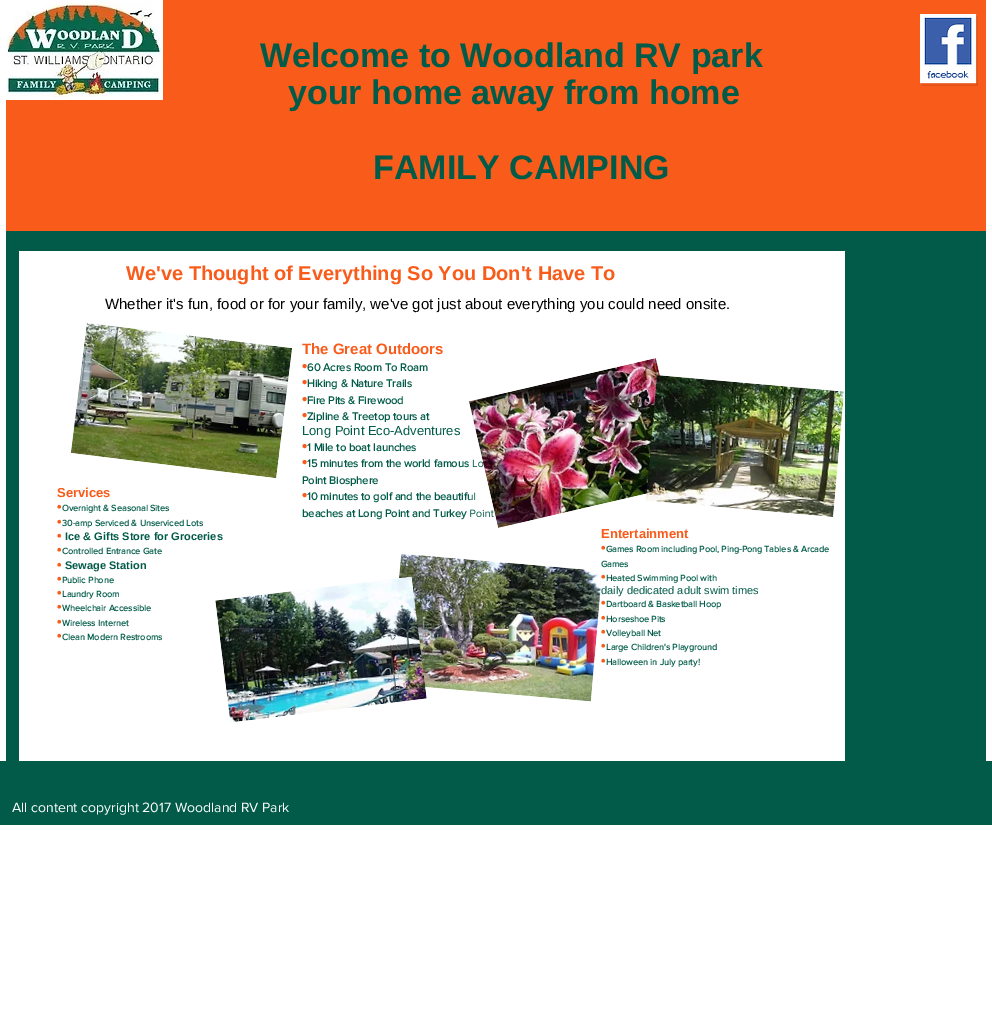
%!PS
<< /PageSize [992 1010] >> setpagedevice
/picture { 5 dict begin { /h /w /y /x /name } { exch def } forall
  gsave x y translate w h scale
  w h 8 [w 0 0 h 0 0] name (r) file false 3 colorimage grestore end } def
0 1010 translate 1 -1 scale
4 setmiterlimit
1 setgray
0 0 992 1010 rectfill
0.976 0.357 0.102 setrgbcolor
6 0 980 231 rectfill
(img1.rgb) 6 0 157 100 picture
/LiberationSans-Bold [34 0 0 -34 0 0] selectfont
0.004 0.357 0.282 setrgbcolor
260 67 moveto (Welcome to Woodland RV park) show
288 104 moveto (your home away from home) show
373 179 moveto (FAMILY CAMPING) show
(img2.rgb) 920 14 58 72 picture
6 231 980 530 rectfill
1 setgray
19 251 826 510 rectfill
/LiberationSans-Bold [20 0 0 -20 0 0] selectfont
0.976 0.357 0.102 setrgbcolor
126 280 moveto (We've Thought of Everything So You Don't Have To) show
/LiberationSans-Regular [15 0 0 -15 0 0] selectfont
0 setgray
105 309 moveto (Whether it's fun, food or for your family, we've got just about everything you could need onsite.) show
(img3.rgb) 71 323 221 156 picture
/LiberationSans-Bold [15 0 0 -15 0 0] selectfont
0.976 0.357 0.102 setrgbcolor
302 354 moveto (The Great Outdoors) show
302 371 moveto (•) show
/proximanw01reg-Bold [11 0 0 -11 0 0] selectfont
0.004 0.357 0.282 setrgbcolor
307 371 moveto (60 Acres Room To Roam) show
/LiberationSans-Bold [15 0 0 -15 0 0] selectfont
0.976 0.357 0.102 setrgbcolor
302 387 moveto (•) show
/proximanw01reg-Bold [11 0 0 -11 0 0] selectfont
0.004 0.357 0.282 setrgbcolor
307 387 moveto (Hiking & Nature Trails) show
/LiberationSans-Bold [15 0 0 -15 0 0] selectfont
0.976 0.357 0.102 setrgbcolor
302 404 moveto (•) show
/proximanw01reg-Bold [11 0 0 -11 0 0] selectfont
0.004 0.357 0.282 setrgbcolor
307 404 moveto (Fire Pits & Firewood) show
/LiberationSans-Bold [15 0 0 -15 0 0] selectfont
0.976 0.357 0.102 setrgbcolor
302 420 moveto (•) show
/proximanw01reg-Bold [11 0 0 -11 0 0] selectfont
0.004 0.357 0.282 setrgbcolor
307 420 moveto (Zipline & Treetop tours at) show
/LiberationSans-Regular [13 0 0 -13 0 0] selectfont
302 435 moveto (Long Point Eco-Adventures) show
/LiberationSans-Bold [15 0 0 -15 0 0] selectfont
0.976 0.357 0.102 setrgbcolor
302 451 moveto (•) show
/proximanw01reg-Bold [11 0 0 -11 0 0] selectfont
0.004 0.357 0.282 setrgbcolor
307 451 moveto (1 Mile to boat launches) show
/LiberationSans-Bold [15 0 0 -15 0 0] selectfont
0.976 0.357 0.102 setrgbcolor
302 467 moveto (•) show
/proximanw01reg-Bold [11 0 0 -11 0 0] selectfont
0.004 0.357 0.282 setrgbcolor
307 467 moveto (15 minutes from the world famous Lo) show
302 484 moveto (Point Biosphere) show
/LiberationSans-Bold [15 0 0 -15 0 0] selectfont
0.976 0.357 0.102 setrgbcolor
302 500 moveto (•) show
/proximanw01reg-Bold [11 0 0 -11 0 0] selectfont
0.004 0.357 0.282 setrgbcolor
307 500 moveto (10 minutes to golf and the beautiful) show
302 517 moveto (beaches at Long Point and Turkey Point) show
(img4.rgb) 469 358 191 170 picture
(img5.rgb) 646 375 198 142 picture
/LiberationSans-Bold [13 0 0 -13 0 0] selectfont
0.976 0.357 0.102 setrgbcolor
57 497 moveto (Services) show
57 511 moveto (•) show
/proximanw01reg-Bold [9 0 0 -9 0 0] selectfont
0.004 0.357 0.282 setrgbcolor
62 511 moveto (Overnight & Seasonal Sites) show
/LiberationSans-Bold [13 0 0 -13 0 0] selectfont
0.976 0.357 0.102 setrgbcolor
57 526 moveto (•) show
/proximanw01reg-Bold [9 0 0 -9 0 0] selectfont
0.004 0.357 0.282 setrgbcolor
62 526 moveto (30-amp Serviced & Unserviced Lots) show
/LiberationSans-Bold [13 0 0 -13 0 0] selectfont
0.976 0.357 0.102 setrgbcolor
57 540 moveto (•) show
/LiberationSans-Bold [11 0 0 -11 0 0] selectfont
0.004 0.357 0.282 setrgbcolor
65 540 moveto (Ice & Gifts Store for Groceries) show
/LiberationSans-Bold [13 0 0 -13 0 0] selectfont
0.976 0.357 0.102 setrgbcolor
57 554 moveto (•) show
/proximanw01reg-Bold [9 0 0 -9 0 0] selectfont
0.004 0.357 0.282 setrgbcolor
62 554 moveto (Controlled Entrance Gate) show
/LiberationSans-Bold [13 0 0 -13 0 0] selectfont
0.976 0.357 0.102 setrgbcolor
57 569 moveto (•) show
/LiberationSans-Bold [11 0 0 -11 0 0] selectfont
0.004 0.357 0.282 setrgbcolor
65 569 moveto (Sewage Station) show
/LiberationSans-Bold [13 0 0 -13 0 0] selectfont
0.976 0.357 0.102 setrgbcolor
57 583 moveto (•) show
/proximanw01reg-Bold [9 0 0 -9 0 0] selectfont
0.004 0.357 0.282 setrgbcolor
62 583 moveto (Public Phone) show
/LiberationSans-Bold [13 0 0 -13 0 0] selectfont
0.976 0.357 0.102 setrgbcolor
57 597 moveto (•) show
/proximanw01reg-Bold [9 0 0 -9 0 0] selectfont
0.004 0.357 0.282 setrgbcolor
62 597 moveto (Laundry Room) show
/LiberationSans-Bold [13 0 0 -13 0 0] selectfont
0.976 0.357 0.102 setrgbcolor
57 611 moveto (•) show
/proximanw01reg-Bold [9 0 0 -9 0 0] selectfont
0.004 0.357 0.282 setrgbcolor
62 611 moveto (Wheelchair Accessible) show
/LiberationSans-Bold [13 0 0 -13 0 0] selectfont
0.976 0.357 0.102 setrgbcolor
57 626 moveto (•) show
/proximanw01reg-Bold [9 0 0 -9 0 0] selectfont
0.004 0.357 0.282 setrgbcolor
62 626 moveto (Wireless Internet) show
/LiberationSans-Bold [13 0 0 -13 0 0] selectfont
0.976 0.357 0.102 setrgbcolor
57 640 moveto (•) show
/proximanw01reg-Bold [9 0 0 -9 0 0] selectfont
0.004 0.357 0.282 setrgbcolor
62 640 moveto (Clean Modern Restrooms) show
(img7.rgb) 399 553 202 149 picture
(img6.rgb) 215 576 212 146 picture
/LiberationSans-Bold [13 0 0 -13 0 0] selectfont
0.976 0.357 0.102 setrgbcolor
601 538 moveto (Entertainment) show
601 552 moveto (•) show
/proximanw01reg-Bold [9 0 0 -9 0 0] selectfont
0.004 0.357 0.282 setrgbcolor
606 552 moveto (Games Room including Pool, Ping-Pong Tables & Arcade) show
601 567 moveto (Games) show
/LiberationSans-Bold [13 0 0 -13 0 0] selectfont
0.976 0.357 0.102 setrgbcolor
601 581 moveto (•) show
/proximanw01reg-Bold [9 0 0 -9 0 0] selectfont
0.004 0.357 0.282 setrgbcolor
606 581 moveto (Heated Swimming Pool with) show
/LiberationSans-Regular [11 0 0 -11 0 0] selectfont
601 594 moveto (daily dedicated adult swim times) show
/LiberationSans-Bold [13 0 0 -13 0 0] selectfont
0.976 0.357 0.102 setrgbcolor
601 607 moveto (•) show
/proximanw01reg-Bold [9 0 0 -9 0 0] selectfont
0.004 0.357 0.282 setrgbcolor
606 607 moveto (Dartboard & Basketball Hoop) show
/LiberationSans-Bold [13 0 0 -13 0 0] selectfont
0.976 0.357 0.102 setrgbcolor
601 622 moveto (•) show
/proximanw01reg-Bold [9 0 0 -9 0 0] selectfont
0.004 0.357 0.282 setrgbcolor
606 622 moveto (Horseshoe Pits) show
/LiberationSans-Bold [13 0 0 -13 0 0] selectfont
0.976 0.357 0.102 setrgbcolor
601 636 moveto (•) show
/proximanw01reg-Bold [9 0 0 -9 0 0] selectfont
0.004 0.357 0.282 setrgbcolor
606 636 moveto (Volleyball Net) show
/LiberationSans-Bold [13 0 0 -13 0 0] selectfont
0.976 0.357 0.102 setrgbcolor
601 650 moveto (•) show
/proximanw01reg-Bold [9 0 0 -9 0 0] selectfont
0.004 0.357 0.282 setrgbcolor
606 650 moveto (Large Children's Playground) show
/LiberationSans-Bold [13 0 0 -13 0 0] selectfont
0.976 0.357 0.102 setrgbcolor
601 665 moveto (•) show
/proximanw01reg-Bold [9 0 0 -9 0 0] selectfont
0.004 0.357 0.282 setrgbcolor
606 665 moveto (Halloween in July party!) show
0 761 992 64 rectfill
/proximanw01reg-Regular [14 0 0 -14 0 0] selectfont
1 setgray
12 812 moveto (All content copyright 2017 Woodland RV Park) show
showpage
